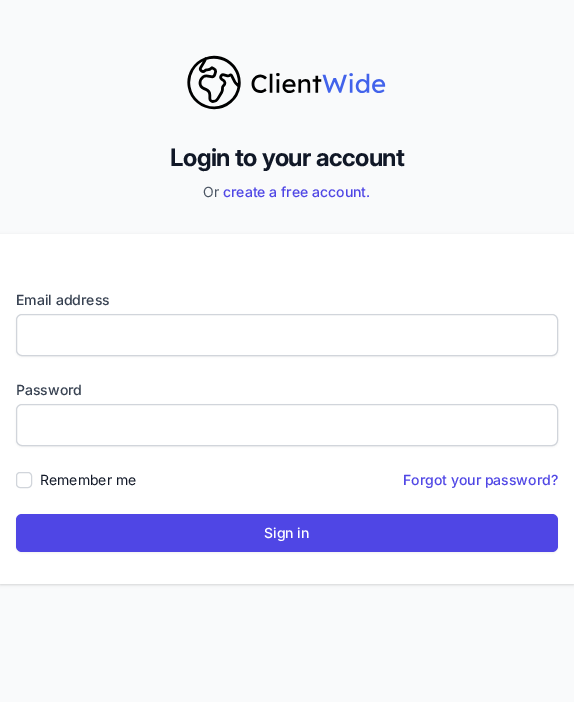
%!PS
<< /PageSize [574 702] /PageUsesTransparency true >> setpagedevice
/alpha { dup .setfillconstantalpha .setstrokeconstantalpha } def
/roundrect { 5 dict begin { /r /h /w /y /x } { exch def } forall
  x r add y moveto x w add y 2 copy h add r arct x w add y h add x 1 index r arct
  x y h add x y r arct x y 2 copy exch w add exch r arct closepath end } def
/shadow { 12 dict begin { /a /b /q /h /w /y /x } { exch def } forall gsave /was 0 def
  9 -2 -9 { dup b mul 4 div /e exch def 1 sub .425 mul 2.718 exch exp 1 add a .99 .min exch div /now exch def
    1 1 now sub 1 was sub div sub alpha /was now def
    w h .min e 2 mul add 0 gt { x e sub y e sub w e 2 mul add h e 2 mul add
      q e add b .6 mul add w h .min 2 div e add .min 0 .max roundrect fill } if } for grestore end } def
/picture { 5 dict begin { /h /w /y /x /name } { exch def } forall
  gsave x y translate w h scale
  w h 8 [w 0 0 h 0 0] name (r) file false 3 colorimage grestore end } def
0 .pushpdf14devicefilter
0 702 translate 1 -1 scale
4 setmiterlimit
0.976 0.98 0.984 setrgbcolor
0 0 574 702 rectfill
(img1.rgb) 187 55 199 55 picture
/Inter-Bold [24 0 0 -24 0 0] selectfont
0.067 0.094 0.153 setrgbcolor
170 166 moveto -0.6 0 (Login to your account) ashow
/Inter-Regular [14 0 0 -14 0 0] selectfont
0.294 0.333 0.388 setrgbcolor
203 197 moveto (Or) show
/Inter-Medium [14 0 0 -14 0 0] selectfont
0.31 0.275 0.898 setrgbcolor
223 197 moveto (create a free account.) show
0 setgray
1 236 572 348 0 1 0.1 shadow
0 235 574 350 0 1.5 0.1 shadow
1 setgray
0 234 574 350 rectfill
0.216 0.255 0.318 setrgbcolor
16 305 moveto (Email address) show
0 setgray
16 315 542 42 6 1 0.05 shadow
1 setgray
16.5 314.5 541 41 5.5 roundrect gsave fill grestore
0.82 0.835 0.859 setrgbcolor
stroke
0.216 0.255 0.318 setrgbcolor
16 395 moveto (Password) show
0 setgray
16 405 542 42 6 1 0.05 shadow
1 setgray
16.5 404.5 541 41 5.5 roundrect gsave fill grestore
0.82 0.835 0.859 setrgbcolor
stroke
16.5 472.5 15 15 3.5 roundrect stroke
/Inter-Regular [14 0 0 -14 0 0] selectfont
0.067 0.094 0.153 setrgbcolor
40 485 moveto (Remember me) show
/Inter-Medium [14 0 0 -14 0 0] selectfont
0.31 0.275 0.898 setrgbcolor
403 485 moveto (Forgot your password?) show
0 setgray
16 515 542 38 6 1 0.05 shadow
0.31 0.275 0.898 setrgbcolor
16 514 542 38 6 roundrect fill
1 setgray
264 538 moveto (Sign in) show
.poppdf14devicefilter showpage
